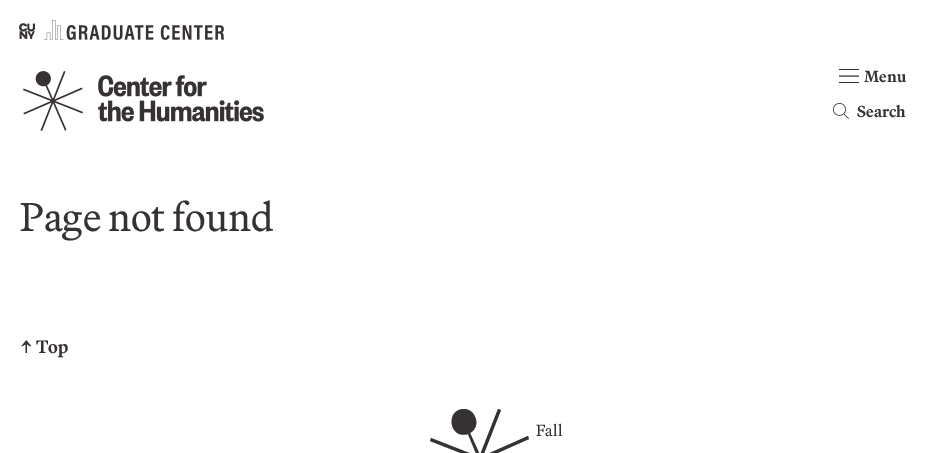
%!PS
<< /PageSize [926 453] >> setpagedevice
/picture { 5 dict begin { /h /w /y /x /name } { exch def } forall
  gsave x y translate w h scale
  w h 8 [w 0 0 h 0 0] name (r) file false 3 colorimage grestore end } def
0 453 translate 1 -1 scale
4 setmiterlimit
1 setgray
0 0 926 453 rectfill
(img1.rgb) 23 71 60 60 picture
(img2.rgb) 98 75 166 47 picture
0.212 0.196 0.192 setrgbcolor
839 69 20 1 rectfill
newpath 839 76 moveto 859 76 lineto stroke
839 82 20 1 rectfill
/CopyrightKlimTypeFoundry-Bold [16 0 0 -16 0 0] selectfont
864 82 moveto (Menu) show
(img3.rgb) 19 20 205 20 picture
(img4.rgb) 833 103 16 16 picture
857 117 moveto (Search) show
/CopyrightKlimTypeFoundry-Regular [40 0 0 -40 0 0] selectfont
20 231 moveto (Page not found) show
/CopyrightKlimTypeFoundry-Bold [18 0 0 -18 0 0] selectfont
20 353 moveto (↑ Top) show
newpath 477 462 moveto 459 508 lineto 462 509 lineto 480 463 lineto 500 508 lineto 503 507 lineto 483 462 lineto 529 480 lineto 530 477 lineto 484 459 lineto 529 439 lineto 528 436 lineto 483 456 lineto 501 410 lineto 498 409 lineto 480 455 lineto 470 433 lineto 477 429 478 421 474 415 curveto 472 411 468 409 464 409 curveto 445 409 449 440 468 434 curveto 477 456 lineto 431 438 lineto 430 441 lineto 476 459 lineto 431 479 lineto 432 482 lineto closepath fill
/CopyrightKlimTypeFoundry-Regular [16 0 0 -16 0 0] selectfont
536 436 moveto (Fall) show
showpage
